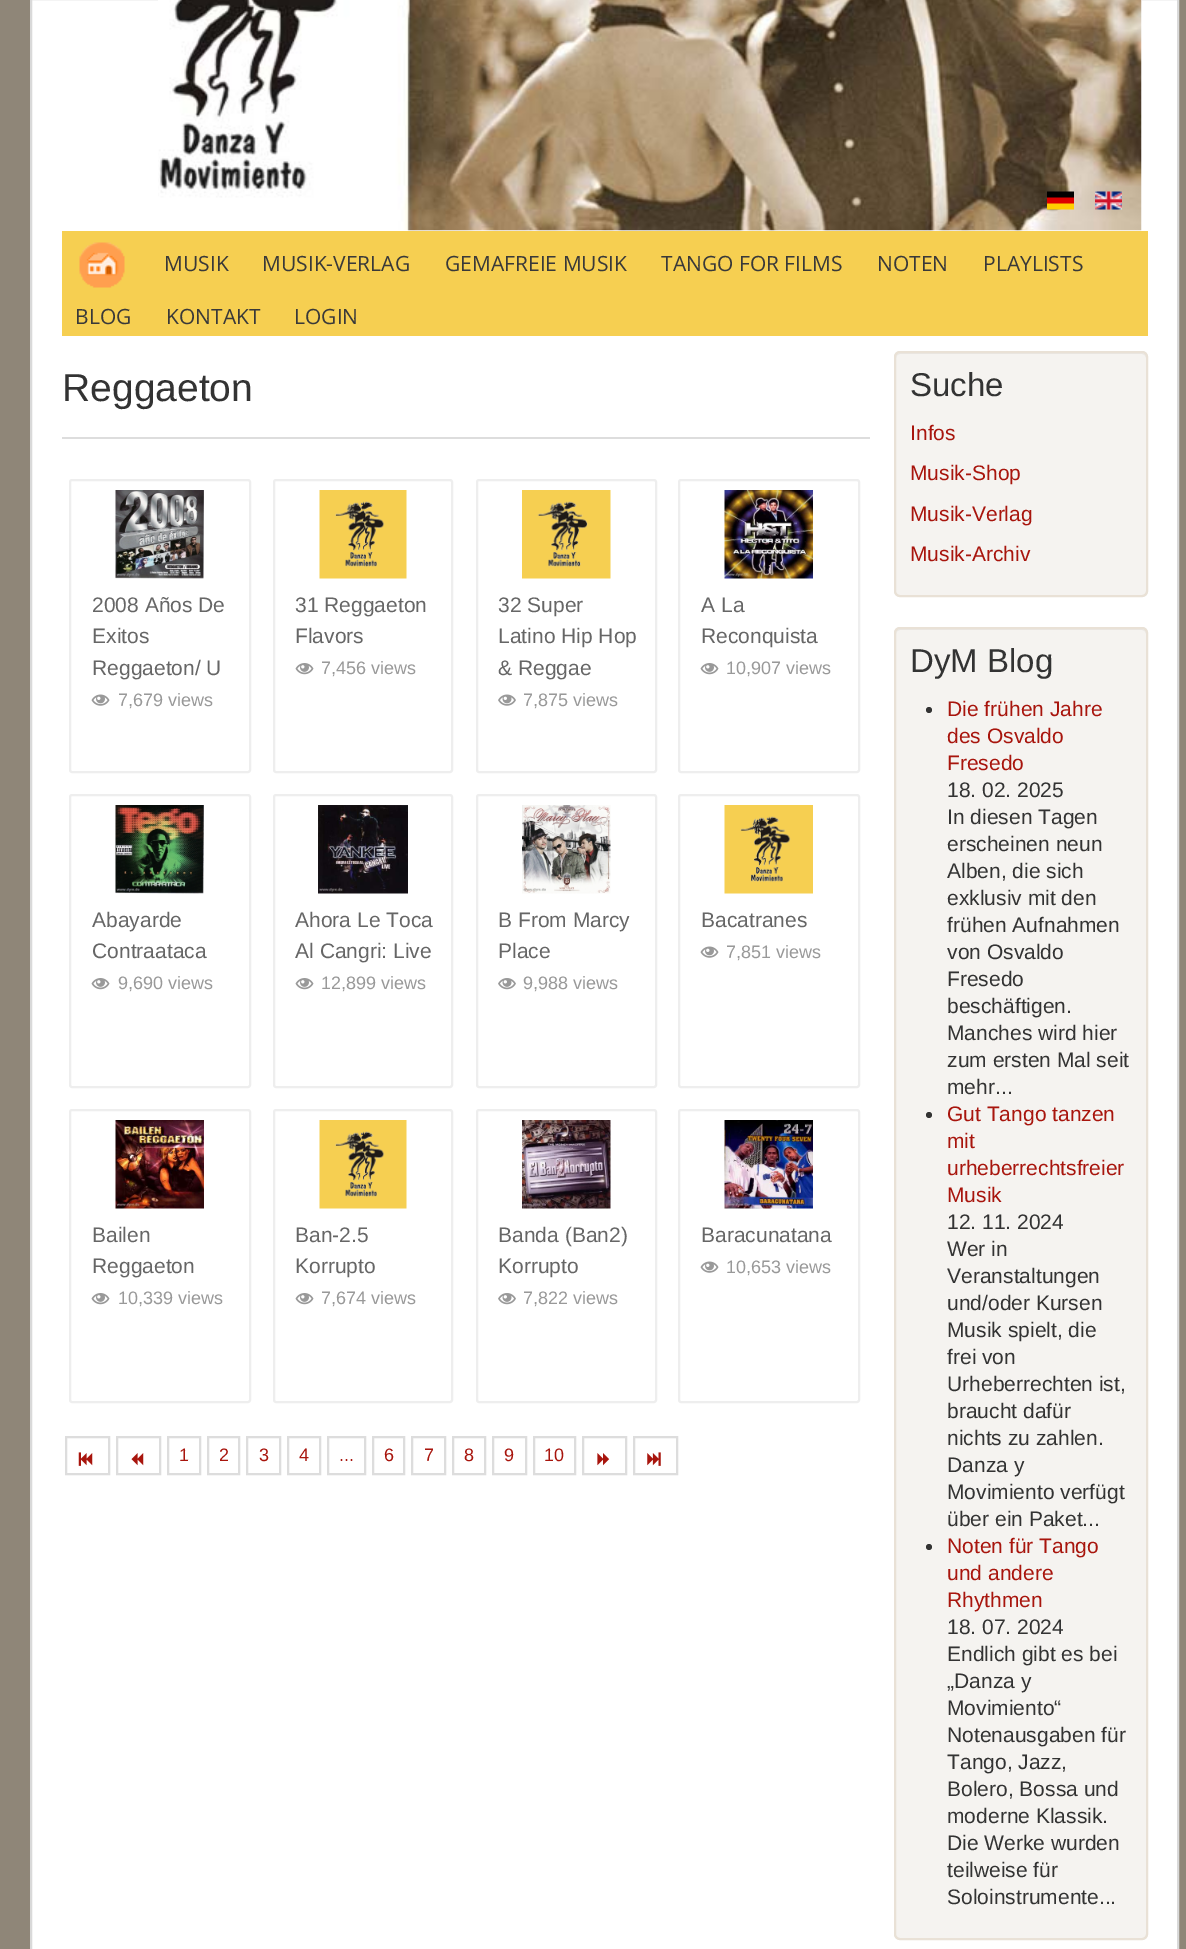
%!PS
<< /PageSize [1186 1949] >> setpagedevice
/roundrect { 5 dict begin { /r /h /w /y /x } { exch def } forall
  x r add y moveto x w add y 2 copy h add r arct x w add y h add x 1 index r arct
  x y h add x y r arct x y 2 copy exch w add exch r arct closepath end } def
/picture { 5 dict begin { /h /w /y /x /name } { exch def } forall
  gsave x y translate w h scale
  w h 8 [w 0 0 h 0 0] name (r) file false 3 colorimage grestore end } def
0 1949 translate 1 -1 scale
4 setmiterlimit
0.561 0.525 0.471 setrgbcolor
0 0 1186 1949 rectfill
1 setgray
newpath 31 -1 moveto 1178 -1 lineto 1178 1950 lineto 31 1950 lineto closepath gsave fill grestore
0.851 setgray
2 setlinewidth
stroke
(img1.rgb) 158 0 984 231 picture
(img2.rgb) 1047 191 27 19 picture
(img3.rgb) 1095 191 27 19 picture
0.965 0.812 0.318 setrgbcolor
62 231 1086 105 rectfill
(img4.rgb) 79 242 46 46 picture
/OpenSans-Regular [21 0 0 -21 0 0] selectfont
0.224 setgray
164 271 moveto (MUSIK) show
262 271 moveto (MUSIK-VERLAG) show
445 271 moveto (GEMAFREIE MUSIK) show
661 271 moveto (TANGO FOR FILMS) show
877 271 moveto (NOTEN) show
983 271 moveto (PLAYLISTS) show
75 324 moveto (BLOG) show
166 324 moveto (KONTAKT) show
294 324 moveto (LOGIN) show
/LiberationSans-Regular [39 0 0 -39 0 0] selectfont
0.2 setgray
62 401 moveto (Reggaeton) show
0.867 setgray
62 437 808 2 rectfill
0.933 setgray
70 480 180 292 2 roundrect stroke
(img5.rgb) 115 490 89 89 picture
/LiberationSans-Regular [21 0 0 -21 0 0] selectfont
0.4 setgray
92 612 moveto (2008 Años De) show
92 643 moveto (Exitos) show
92 675 moveto (Reggaeton/ U) show
(img6.rgb) 91 694 19 12 picture
/LiberationSans-Regular [18 0 0 -18 0 0] selectfont
0.6 setgray
118 706 moveto (7,679 views) show
0.933 setgray
274 480 178 292 2 roundrect stroke
(img7.rgb) 319 490 88 89 picture
/LiberationSans-Regular [21 0 0 -21 0 0] selectfont
0.4 setgray
295 612 moveto (31 Reggaeton) show
295 643 moveto (Flavors) show
(img8.rgb) 295 663 19 12 picture
/LiberationSans-Regular [18 0 0 -18 0 0] selectfont
0.6 setgray
321 674 moveto (7,456 views) show
0.933 setgray
477 480 179 292 2 roundrect stroke
(img9.rgb) 522 490 89 89 picture
/LiberationSans-Regular [21 0 0 -21 0 0] selectfont
0.4 setgray
498 612 moveto (32 Super) show
498 643 moveto (Latino Hip Hop) show
498 675 moveto (& Reggae) show
(img10.rgb) 498 694 18 12 picture
/LiberationSans-Regular [18 0 0 -18 0 0] selectfont
0.6 setgray
523 706 moveto (7,875 views) show
0.933 setgray
679 480 180 292 2 roundrect stroke
(img11.rgb) 724 490 89 89 picture
/LiberationSans-Regular [21 0 0 -21 0 0] selectfont
0.4 setgray
701 612 moveto (A La) show
701 643 moveto (Reconquista) show
(img8.rgb) 700 663 19 12 picture
/LiberationSans-Regular [18 0 0 -18 0 0] selectfont
0.6 setgray
726 674 moveto (10,907 views) show
0.933 setgray
70 795 180 292 2 roundrect stroke
(img12.rgb) 115 805 89 89 picture
/LiberationSans-Regular [21 0 0 -21 0 0] selectfont
0.4 setgray
92 927 moveto (Abayarde) show
92 958 moveto (Contraataca) show
(img8.rgb) 91 978 19 12 picture
/LiberationSans-Regular [18 0 0 -18 0 0] selectfont
0.6 setgray
118 989 moveto (9,690 views) show
0.933 setgray
274 795 178 292 2 roundrect stroke
(img13.rgb) 318 805 90 89 picture
/LiberationSans-Regular [21 0 0 -21 0 0] selectfont
0.4 setgray
295 927 moveto (Ahora Le Toca) show
295 958 moveto (Al Cangri: Live) show
(img8.rgb) 295 978 19 12 picture
/LiberationSans-Regular [18 0 0 -18 0 0] selectfont
0.6 setgray
321 989 moveto (12,899 views) show
0.933 setgray
477 795 179 292 2 roundrect stroke
(img14.rgb) 522 805 89 89 picture
/LiberationSans-Regular [21 0 0 -21 0 0] selectfont
0.4 setgray
498 927 moveto (B From Marcy) show
498 958 moveto (Place) show
(img15.rgb) 498 978 18 12 picture
/LiberationSans-Regular [18 0 0 -18 0 0] selectfont
0.6 setgray
523 989 moveto (9,988 views) show
0.933 setgray
679 795 180 292 2 roundrect stroke
(img16.rgb) 724 805 89 89 picture
/LiberationSans-Regular [21 0 0 -21 0 0] selectfont
0.4 setgray
701 927 moveto (Bacatranes) show
(img6.rgb) 700 946 19 12 picture
/LiberationSans-Regular [18 0 0 -18 0 0] selectfont
0.6 setgray
726 958 moveto (7,851 views) show
0.933 setgray
70 1110 180 292 2 roundrect stroke
(img17.rgb) 115 1120 89 89 picture
/LiberationSans-Regular [21 0 0 -21 0 0] selectfont
0.4 setgray
92 1242 moveto (Bailen) show
92 1273 moveto (Reggaeton) show
(img8.rgb) 91 1293 19 12 picture
/LiberationSans-Regular [18 0 0 -18 0 0] selectfont
0.6 setgray
118 1304 moveto (10,339 views) show
0.933 setgray
274 1110 178 292 2 roundrect stroke
(img7.rgb) 319 1120 88 89 picture
/LiberationSans-Regular [21 0 0 -21 0 0] selectfont
0.4 setgray
295 1242 moveto (Ban-2.5) show
295 1273 moveto (Korrupto) show
(img8.rgb) 295 1293 19 12 picture
/LiberationSans-Regular [18 0 0 -18 0 0] selectfont
0.6 setgray
321 1304 moveto (7,674 views) show
0.933 setgray
477 1110 179 292 2 roundrect stroke
(img18.rgb) 522 1120 89 89 picture
/LiberationSans-Regular [21 0 0 -21 0 0] selectfont
0.4 setgray
498 1242 moveto (Banda \(Ban2\)) show
498 1273 moveto (Korrupto) show
(img15.rgb) 498 1293 18 12 picture
/LiberationSans-Regular [18 0 0 -18 0 0] selectfont
0.6 setgray
523 1304 moveto (7,822 views) show
0.933 setgray
679 1110 180 292 2 roundrect stroke
(img19.rgb) 724 1120 89 89 picture
/LiberationSans-Regular [21 0 0 -21 0 0] selectfont
0.4 setgray
701 1242 moveto (Baracunatana) show
(img6.rgb) 700 1261 19 12 picture
/LiberationSans-Regular [18 0 0 -18 0 0] selectfont
0.6 setgray
726 1273 moveto (10,653 views) show
0.867 setgray
66 1437 43 37 rectstroke
(img20.rgb) 78 1452 15 14 picture
117 1437 43 37 rectstroke
(img21.rgb) 131 1453 13 13 picture
168 1437 32 37 rectstroke
0.659 0.082 0.051 setrgbcolor
179 1461 moveto (1) show
0.867 setgray
208 1437 31 37 rectstroke
0.659 0.082 0.051 setrgbcolor
219 1461 moveto (2) show
0.867 setgray
247 1437 33 37 rectstroke
0.659 0.082 0.051 setrgbcolor
259 1461 moveto (3) show
0.867 setgray
288 1437 32 37 rectstroke
0.659 0.082 0.051 setrgbcolor
299 1461 moveto (4) show
0.867 setgray
328 1437 37 37 rectstroke
0.659 0.082 0.051 setrgbcolor
339 1461 moveto (...) show
0.867 setgray
373 1437 31 37 rectstroke
0.659 0.082 0.051 setrgbcolor
384 1461 moveto (6) show
0.867 setgray
412 1437 33 37 rectstroke
0.659 0.082 0.051 setrgbcolor
424 1461 moveto (7) show
0.867 setgray
453 1437 32 37 rectstroke
0.659 0.082 0.051 setrgbcolor
464 1461 moveto (8) show
0.867 setgray
493 1437 33 37 rectstroke
0.659 0.082 0.051 setrgbcolor
504 1461 moveto (9) show
0.867 setgray
534 1437 41 37 rectstroke
0.659 0.082 0.051 setrgbcolor
544 1461 moveto (10) show
0.867 setgray
583 1437 43 37 rectstroke
(img22.rgb) 597 1453 13 13 picture
634 1437 43 37 rectstroke
(img23.rgb) 647 1452 14 14 picture
0.961 0.953 0.941 setrgbcolor
894 351 254 246 6 roundrect fill
0.914 0.906 0.894 setrgbcolor
newpath 900 354 moveto 1142 354 lineto 1144 354 1146 356 1146 358 curveto 1146 355 1144 353 1141 353 curveto 901 353 lineto 898 353 896 355 896 358 curveto 896 356 898 354 900 354 curveto closepath fill
0.914 0.882 0.839 setrgbcolor
895 352 252 244 5 roundrect stroke
/LiberationSans-Regular [33 0 0 -33 0 0] selectfont
0.2 setgray
910 396 moveto (Suche) show
/LiberationSans-Regular [21 0 0 -21 0 0] selectfont
0.659 0.082 0.051 setrgbcolor
910 440 moveto (Infos) show
910 480 moveto (Musik-Shop) show
910 521 moveto (Musik-Verlag) show
910 561 moveto (Musik-Archiv) show
0.961 0.953 0.941 setrgbcolor
894 627 254 1313 6 roundrect fill
0.914 0.906 0.894 setrgbcolor
newpath 900 630 moveto 1142 630 lineto 1144 630 1146 632 1146 634 curveto 1146 631 1144 629 1141 629 curveto 901 629 lineto 898 629 896 631 896 634 curveto 896 632 898 630 900 630 curveto closepath fill
0.914 0.882 0.839 setrgbcolor
895 628 252 1311 5 roundrect stroke
/LiberationSans-Regular [33 0 0 -33 0 0] selectfont
0.2 setgray
910 672 moveto (DyM Blog) show
newpath 929 710 3 0 360 arc closepath fill
/LiberationSans-Regular [21 0 0 -21 0 0] selectfont
0.659 0.082 0.051 setrgbcolor
947 716 moveto (Die frühen Jahre) show
947 743 moveto (des Osvaldo) show
947 770 moveto (Fresedo) show
0.2 setgray
947 797 moveto (18. 02. 2025) show
947 824 moveto (In diesen Tagen) show
947 851 moveto (erscheinen neun) show
947 878 moveto (Alben, die sich) show
947 905 moveto (exklusiv mit den) show
947 932 moveto (frühen Aufnahmen) show
947 959 moveto (von Osvaldo) show
947 986 moveto (Fresedo) show
947 1013 moveto (beschäftigen.) show
947 1040 moveto (Manches wird hier) show
947 1067 moveto (zum ersten Mal seit) show
947 1094 moveto (mehr...) show
newpath 929 1115 3 0 360 arc closepath fill
0.659 0.082 0.051 setrgbcolor
947 1121 moveto (Gut Tango tanzen) show
947 1148 moveto (mit) show
947 1175 moveto (urheberrechtsfreier) show
947 1202 moveto (Musik) show
0.2 setgray
947 1229 moveto (12. 11. 2024) show
947 1256 moveto (Wer in) show
947 1283 moveto (Veranstaltungen) show
947 1310 moveto (und/oder Kursen) show
947 1337 moveto (Musik spielt, die) show
947 1364 moveto (frei von) show
947 1391 moveto (Urheberrechten ist,) show
947 1418 moveto (braucht dafür) show
947 1445 moveto (nichts zu zahlen.) show
947 1472 moveto (Danza y) show
947 1499 moveto (Movimiento verfügt) show
947 1526 moveto (über ein Paket...) show
newpath 929 1547 3 0 360 arc closepath fill
0.659 0.082 0.051 setrgbcolor
947 1553 moveto (Noten für Tango) show
947 1580 moveto (und andere) show
947 1607 moveto (Rhythmen) show
0.2 setgray
947 1634 moveto (18. 07. 2024) show
947 1661 moveto (Endlich gibt es bei) show
947 1688 moveto („Danza y) show
947 1715 moveto (Movimiento“) show
947 1742 moveto (Notenausgaben für) show
947 1769 moveto (Tango, Jazz,) show
947 1796 moveto (Bolero, Bossa und) show
947 1823 moveto (moderne Klassik.) show
947 1850 moveto (Die Werke wurden) show
947 1877 moveto (teilweise für) show
947 1904 moveto (Soloinstrumente...) show
showpage
